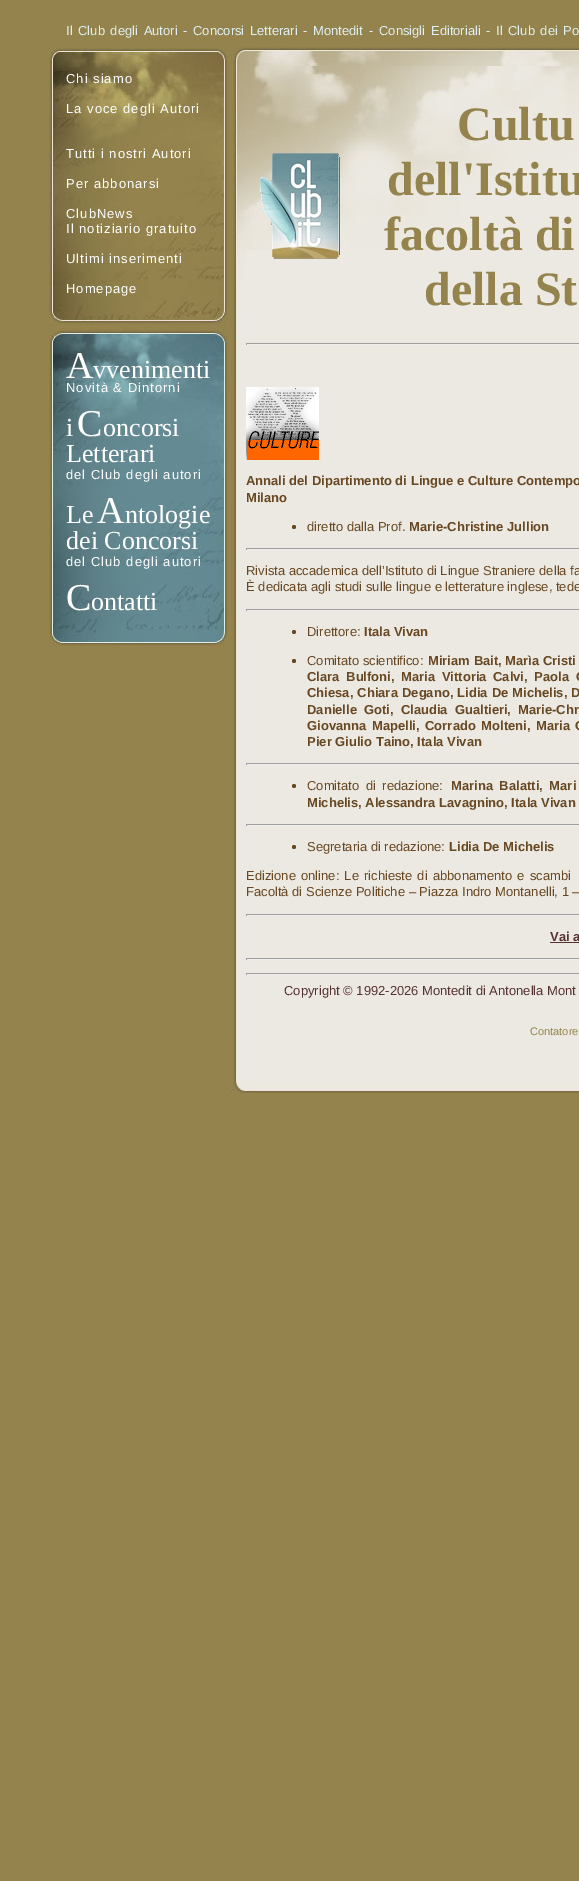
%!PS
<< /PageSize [579 1881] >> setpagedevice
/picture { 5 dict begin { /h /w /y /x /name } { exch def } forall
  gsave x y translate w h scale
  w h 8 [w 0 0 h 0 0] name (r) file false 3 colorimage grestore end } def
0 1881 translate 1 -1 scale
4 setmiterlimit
0.58 0.514 0.302 setrgbcolor
0 0 579 1881 rectfill
/LiberationSans-Regular [13 0 0 -13 0 0] selectfont
0.871 0.941 0.949 setrgbcolor
66 35 moveto 2 0 32 (Il Club degli Autori) widthshow
183 35 moveto (-) show
193 35 moveto 2 0 32 (Concorsi Letterari) widthshow
303 35 moveto (-) show
313 35 moveto (Montedit) show
369 35 moveto (-) show
379 35 moveto 2 0 32 (Consigli Editoriali) widthshow
486 35 moveto (-) show
496 35 moveto 2 0 32 (Il Club dei Po) widthshow
(img1.rgb) 49 47 179 279 picture
1 setgray
66 83 moveto 1 0 (Chi siamo) ashow
66 113 moveto 1 0 (La voce degli Autori) ashow
(img2.rgb) 231 47 15 19 picture
(img3.rgb) 246 47 333 19 picture
(img4.rgb) 231 66 15 260 picture
0.925 0.914 0.886 setrgbcolor
246 250 333 76 rectfill
(img5.rgb) 246 66 333 184 picture
(img6.rgb) 49 326 179 320 picture
(img7.rgb) 260 153 80 106 picture
/LiberationSerif-Bold [48 0 0 -48 0 0] selectfont
0.58 0.514 0.302 setrgbcolor
457 140 moveto (Cultu) show
387 195 moveto (dell'Istitu) show
384 250 moveto (facoltà di) show
424 305 moveto (della St) show
0.925 0.914 0.886 setrgbcolor
237 326 342 711 rectfill
0.624 setgray
246 343 333 1 rectfill
0.933 setgray
246 344 333 1 rectfill
0.624 setgray
246 343 1 2 rectfill
(img8.rgb) 246 387 73 73 picture
/LiberationSans-Bold [13 0 0 -13 0 0] selectfont
0.408 0.282 0.133 setrgbcolor
246 485 moveto (Annali del Dipartimento di Lingue e Culture Contempo) show
246 502 moveto (Milano) show
newpath 294 527 2 0 360 arc closepath fill
/LiberationSans-Regular [13 0 0 -13 0 0] selectfont
307 531 moveto (diretto dalla Prof.) show
/LiberationSans-Bold [13 0 0 -13 0 0] selectfont
409 531 moveto (Marie-Christine Jullion) show
0.624 setgray
246 548 333 1 rectfill
0.933 setgray
246 549 333 1 rectfill
0.624 setgray
246 548 1 2 rectfill
/LiberationSans-Regular [13 0 0 -13 0 0] selectfont
0.408 0.282 0.133 setrgbcolor
246 575 moveto (Rivista accademica dell’Istituto di Lingue Straniere della fa) show
246 591 moveto (È dedicata agli studi sulle lingue e letterature inglese, tede) show
0.624 setgray
246 609 333 1 rectfill
0.933 setgray
246 610 333 1 rectfill
0.624 setgray
246 609 1 2 rectfill
0.408 0.282 0.133 setrgbcolor
newpath 294 632 2 0 360 arc closepath fill
307 636 moveto (Direttore:) show
/LiberationSans-Bold [13 0 0 -13 0 0] selectfont
364 636 moveto (Itala Vivan) show
newpath 294 661 2 0 360 arc closepath fill
/LiberationSans-Regular [13 0 0 -13 0 0] selectfont
307 665 moveto (Comitato scientifico:) show
/LiberationSans-Bold [13 0 0 -13 0 0] selectfont
428 665 moveto (Miriam Bait, Marìa Cristi) show
307 681 moveto 3 0 32 (Clara Bulfoni, Maria Vittoria Calvi, Paola C) widthshow
307 697 moveto 0.5 0 32 (Chiesa, Chiara Degano, Lidia De Michelis, D) widthshow
307 714 moveto 3.5 0 32 (Danielle Goti, Claudia Gualtieri, Marie-Chr) widthshow
307 730 moveto 2 0 32 (Giovanna Mapelli, Corrado Molteni, Maria C) widthshow
307 746 moveto (Pier Giulio Taino, Itala Vivan) show
0.624 setgray
246 763 333 1 rectfill
0.933 setgray
246 764 333 1 rectfill
0.624 setgray
246 763 1 2 rectfill
0.408 0.282 0.133 setrgbcolor
newpath 294 786 2 0 360 arc closepath fill
/LiberationSans-Regular [13 0 0 -13 0 0] selectfont
307 790 moveto 3 0 32 (Comitato di redazione:) widthshow
/LiberationSans-Bold [13 0 0 -13 0 0] selectfont
451 790 moveto 3 0 32 (Marina Balatti, Mari) widthshow
307 807 moveto (Michelis, Alessandra Lavagnino, Itala Vivan) show
0.624 setgray
246 824 333 1 rectfill
0.933 setgray
246 825 333 1 rectfill
0.624 setgray
246 824 1 2 rectfill
0.408 0.282 0.133 setrgbcolor
newpath 294 847 2 0 360 arc closepath fill
/LiberationSans-Regular [13 0 0 -13 0 0] selectfont
307 851 moveto (Segretaria di redazione:) show
/LiberationSans-Bold [13 0 0 -13 0 0] selectfont
449 851 moveto (Lidia De Michelis) show
/LiberationSans-Regular [13 0 0 -13 0 0] selectfont
246 880 moveto 1.5 0 32 (Edizione online: Le richieste di abbonamento e scambi) widthshow
246 896 moveto (Facoltà di Scienze Politiche – Piazza Indro Montanelli, 1 –) show
0.624 setgray
246 914 333 1 rectfill
0.933 setgray
246 915 333 1 rectfill
0.624 setgray
246 914 1 2 rectfill
/LiberationSans-Bold [13 0 0 -13 0 0] selectfont
0.337 0.196 0.196 setrgbcolor
550 941 moveto (Vai a) show
550 942 29 1 rectfill
0.624 setgray
246 958 333 1 rectfill
0.933 setgray
246 959 333 1 rectfill
0.624 setgray
246 958 1 2 rectfill
246 973 333 1 rectfill
0.933 setgray
246 974 333 1 rectfill
0.624 setgray
246 973 1 2 rectfill
/LiberationSans-Regular [13 0 0 -13 0 0] selectfont
0.337 0.196 0.196 setrgbcolor
284 995 moveto (Copyright © 1992-2026 Montedit di Antonella Mont) show
/LiberationSans-Regular [11 0 0 -11 0 0] selectfont
0.58 0.514 0.302 setrgbcolor
530 1035 moveto (Contatore) show
(img9.rgb) 231 326 6 711 picture
(img10.rgb) 231 1037 15 56 picture
(img11.rgb) 246 1037 333 56 picture
/LiberationSans-Regular [13 0 0 -13 0 0] selectfont
1 setgray
66 158 moveto 1 0 (Tutti i nostri Autori) ashow
66 188 moveto 1 0 (Per abbonarsi) ashow
66 218 moveto 1 0 (ClubNews) ashow
66 233 moveto 1 0 (Il notiziario gratuito) ashow
66 263 moveto 1 0 (Ultimi inserimenti) ashow
66 293 moveto 1 0 (Homepage) ashow
/LiberationSerif-Regular [38 0 0 -38 0 0] selectfont
66 378 moveto (A) show
/LiberationSerif-Regular [26 0 0 -26 0 0] selectfont
93 378 moveto (vvenimenti) show
/LiberationSans-Regular [13 0 0 -13 0 0] selectfont
66 392 moveto 1 0 (Novità & Dintorni) ashow
/LiberationSerif-Regular [26 0 0 -26 0 0] selectfont
66 436 moveto (i) show
/LiberationSerif-Regular [38 0 0 -38 0 0] selectfont
77 436 moveto (C) show
/LiberationSerif-Regular [26 0 0 -26 0 0] selectfont
103 436 moveto (oncorsi) show
66 462 moveto (Letterari) show
/LiberationSans-Regular [13 0 0 -13 0 0] selectfont
66 479 moveto 1 0 (del Club degli autori) ashow
/LiberationSerif-Regular [26 0 0 -26 0 0] selectfont
66 523 moveto (Le) show
/LiberationSerif-Regular [38 0 0 -38 0 0] selectfont
97 523 moveto (A) show
/LiberationSerif-Regular [26 0 0 -26 0 0] selectfont
125 523 moveto (ntologie) show
66 549 moveto (dei Concorsi) show
/LiberationSans-Regular [13 0 0 -13 0 0] selectfont
66 566 moveto 1 0 (del Club degli autori) ashow
/LiberationSerif-Regular [38 0 0 -38 0 0] selectfont
66 610 moveto (C) show
/LiberationSerif-Regular [26 0 0 -26 0 0] selectfont
91 610 moveto (ontatti) show
showpage
